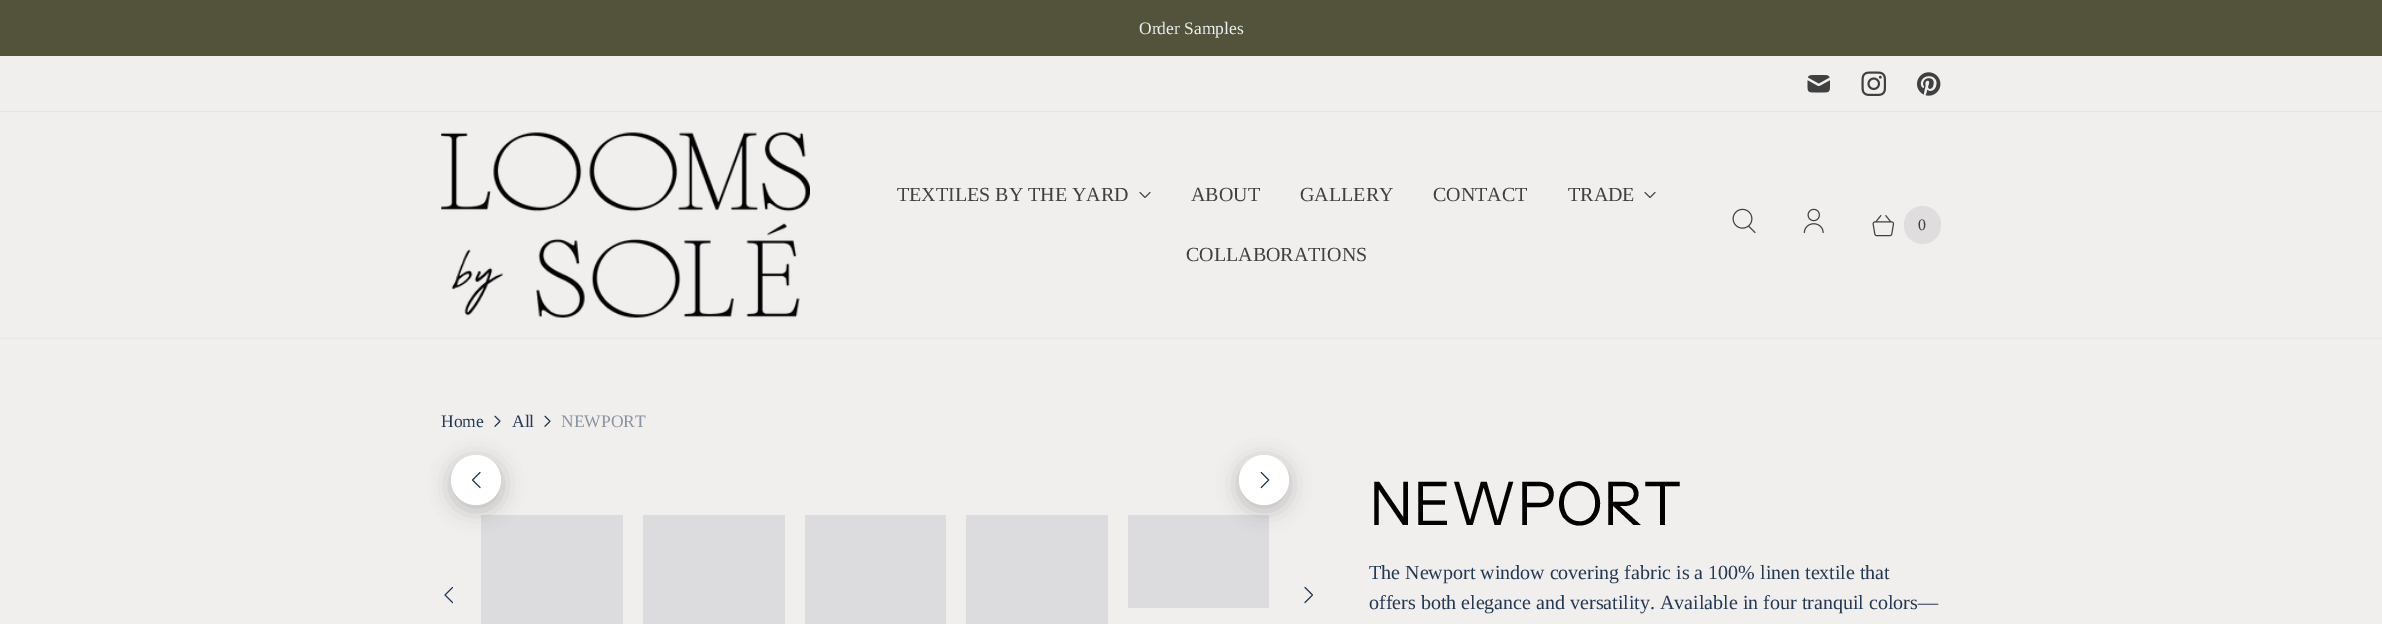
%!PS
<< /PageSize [2382 624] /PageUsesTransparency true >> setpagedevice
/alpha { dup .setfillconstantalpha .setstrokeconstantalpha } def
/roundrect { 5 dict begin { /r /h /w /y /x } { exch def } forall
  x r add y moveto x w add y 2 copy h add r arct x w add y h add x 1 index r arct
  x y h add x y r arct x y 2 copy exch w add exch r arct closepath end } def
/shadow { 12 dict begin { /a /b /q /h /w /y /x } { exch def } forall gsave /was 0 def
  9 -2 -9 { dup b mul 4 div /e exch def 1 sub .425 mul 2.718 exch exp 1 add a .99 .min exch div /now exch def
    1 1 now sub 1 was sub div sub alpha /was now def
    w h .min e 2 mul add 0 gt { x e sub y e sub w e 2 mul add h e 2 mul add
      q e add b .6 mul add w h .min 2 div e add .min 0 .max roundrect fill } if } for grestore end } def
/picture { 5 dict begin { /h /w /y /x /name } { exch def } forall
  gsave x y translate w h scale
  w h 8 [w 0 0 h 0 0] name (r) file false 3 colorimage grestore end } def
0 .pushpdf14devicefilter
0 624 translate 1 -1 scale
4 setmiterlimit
0.945 0.933 0.933 setrgbcolor
0 0 2382 624 rectfill
0.325 0.325 0.235 setrgbcolor
0 0 2382 56 rectfill
/LiberationSerif-Regular [17.5 0 0 -17.5 0 0] selectfont
0.922 0.941 0.957 setrgbcolor
1139 34 moveto (Order Samples) show
0.906 setgray
0 111 2382 1 rectfill
(img1.rgb) 1807 75 23 18 picture
(img2.rgb) 1861 71 25 25 picture
(img3.rgb) 1917 72 24 24 picture
0 338 2382 1 rectfill
(img4.rgb) 441 132 369 186 picture
/LiberationSerif-Regular [20 0 0 -20 0 0] selectfont
0.251 setgray
897 201 moveto (TEXTILES BY THE YARD) show
(img5.rgb) 1139 192 12 6 picture
1191 201 moveto (ABOUT) show
1300 201 moveto (GALLERY) show
1433 201 moveto (CONTACT) show
1568 201 moveto (TRADE) show
(img5.rgb) 1644 192 12 6 picture
1186 261 moveto (COLLABORATIONS) show
(img6.rgb) 1732 208 24 25 picture
(img7.rgb) 1803 208 21 26 picture
(img8.rgb) 1872 215 23 22 picture
0.875 0.867 0.867 setrgbcolor
1904 206 37 38 18.5 roundrect fill
/LiberationSerif-Regular [16 0 0 -16 0 0] selectfont
0.251 setgray
1918 230 moveto (0) show
/LiberationSerif-Regular [17.5 0 0 -17.5 0 0] selectfont
0.137 0.224 0.322 setrgbcolor
441 427 moveto (Home) show
(img9.rgb) 494 415 7 12 picture
512 427 moveto (All) show
(img9.rgb) 544 415 7 12 picture
0.541 0.58 0.627 setrgbcolor
561 427 moveto (NEWPORT) show
0 setgray
450 459 53 52 26 10 0.2 shadow
1 setgray
newpath 476 480 25 0 360 arc closepath fill
(img10.rgb) 472 472 9 17 picture
0 setgray
1238 459 52 52 26 10 0.2 shadow
1 setgray
newpath 1264 480 25 0 360 arc closepath fill
(img11.rgb) 1260 472 10 17 picture
(img12.rgb) 444 587 10 17 picture
0.1 alpha
0.137 0.224 0.322 setrgbcolor
481 515 142 109 rectfill
1 alpha
0.863 0.863 0.871 setrgbcolor
643 515 142 109 rectfill
805 515 141 109 rectfill
966 515 142 109 rectfill
0.1 alpha
0.137 0.224 0.322 setrgbcolor
1128 515 141 93 rectfill
1 alpha
(img13.rgb) 1304 587 9 17 picture
/InstrumentSans-Regular [60 0 0 -60 0 0] selectfont
0 setgray
1369 525 moveto (NEWPORT) show
/LiberationSerif-Regular [20 0 0 -20 0 0] selectfont
0.137 0.224 0.322 setrgbcolor
1369 579 moveto (The Newport window covering fabric is a 100% linen textile that) show
1369 609 moveto (offers both elegance and versatility. Available in four tranquil colors—) show
.poppdf14devicefilter showpage
